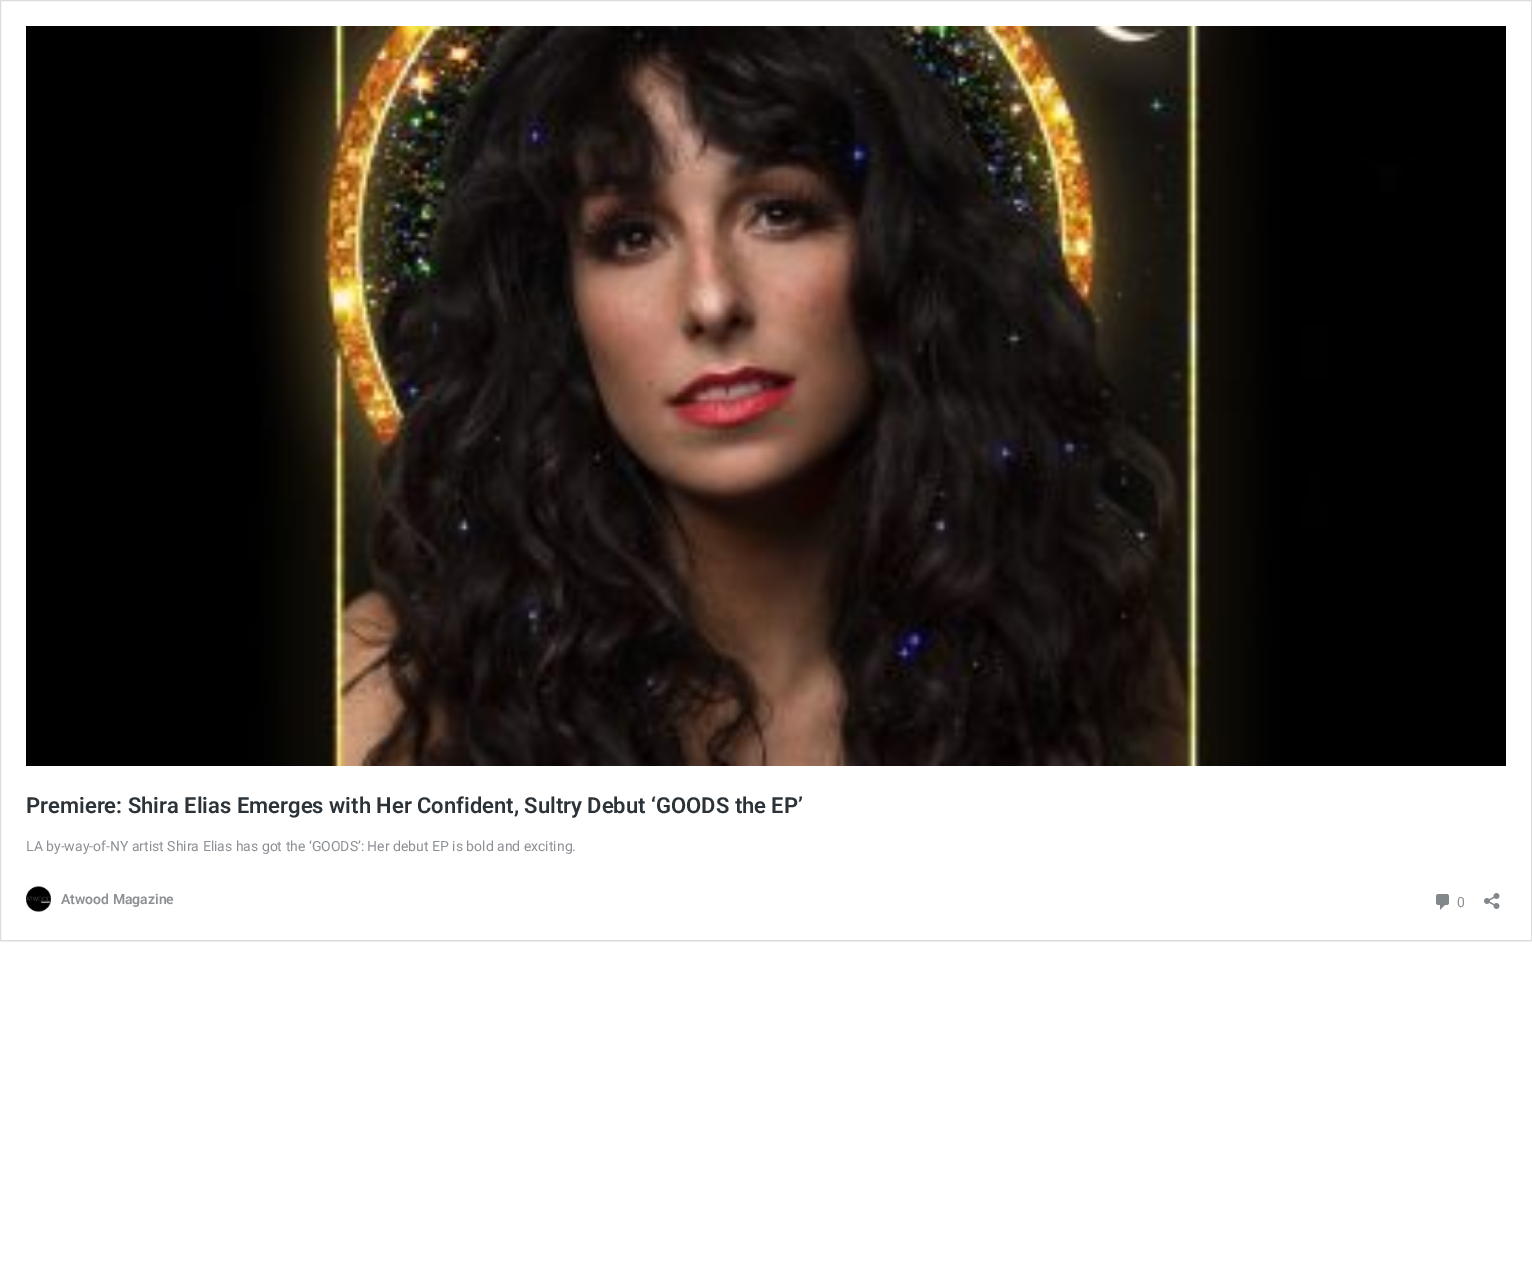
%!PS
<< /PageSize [1532 1283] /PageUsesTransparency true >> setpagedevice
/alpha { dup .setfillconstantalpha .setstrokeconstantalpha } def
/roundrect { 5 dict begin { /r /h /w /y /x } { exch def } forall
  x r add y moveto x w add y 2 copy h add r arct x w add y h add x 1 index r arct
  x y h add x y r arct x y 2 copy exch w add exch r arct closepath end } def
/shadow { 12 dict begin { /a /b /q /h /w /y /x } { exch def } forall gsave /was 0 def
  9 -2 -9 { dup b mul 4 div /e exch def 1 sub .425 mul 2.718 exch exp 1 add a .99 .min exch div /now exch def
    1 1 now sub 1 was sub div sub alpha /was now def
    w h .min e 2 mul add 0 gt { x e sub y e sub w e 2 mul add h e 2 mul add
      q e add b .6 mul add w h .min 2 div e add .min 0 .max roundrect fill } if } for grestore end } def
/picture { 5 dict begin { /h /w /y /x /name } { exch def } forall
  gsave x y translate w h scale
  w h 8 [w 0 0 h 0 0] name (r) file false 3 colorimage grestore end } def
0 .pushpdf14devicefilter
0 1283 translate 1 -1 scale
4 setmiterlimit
1 setgray
0 0 1532 1283 rectfill
gsave
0 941 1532 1 rectclip
0 setgray
0 1 1532 941 0 0.5 0.05 shadow
grestore
0.863 0.863 0.871 setrgbcolor
0.5 0.5 1531 940 rectstroke
(img1.rgb) 26 26 1480 740 picture
/Roboto-SemiBold [22 0 0 -22 0 0] selectfont
0.173 0.2 0.22 setrgbcolor
26 813 moveto (Premiere: Shira Elias Emerges with Her Confident, Sultry Debut ‘GOODS the EP’) show
/Roboto-Regular [14 0 0 -14 0 0] selectfont
0.549 0.561 0.58 setrgbcolor
26 851 moveto (LA by-way-of-NY artist Shira Elias has got the ‘GOODS’: Her debut EP is bold and exciting.) show
(img2.rgb) 26 886 25 26 picture
/Roboto-SemiBold [14 0 0 -14 0 0] selectfont
61 904 moveto (Atwood Magazine) show
(img3.rgb) 1436 894 13 16 picture
/Roboto-Regular [14 0 0 -14 0 0] selectfont
1457 907 moveto (0) show
(img4.rgb) 1484 893 16 16 picture
.poppdf14devicefilter showpage
